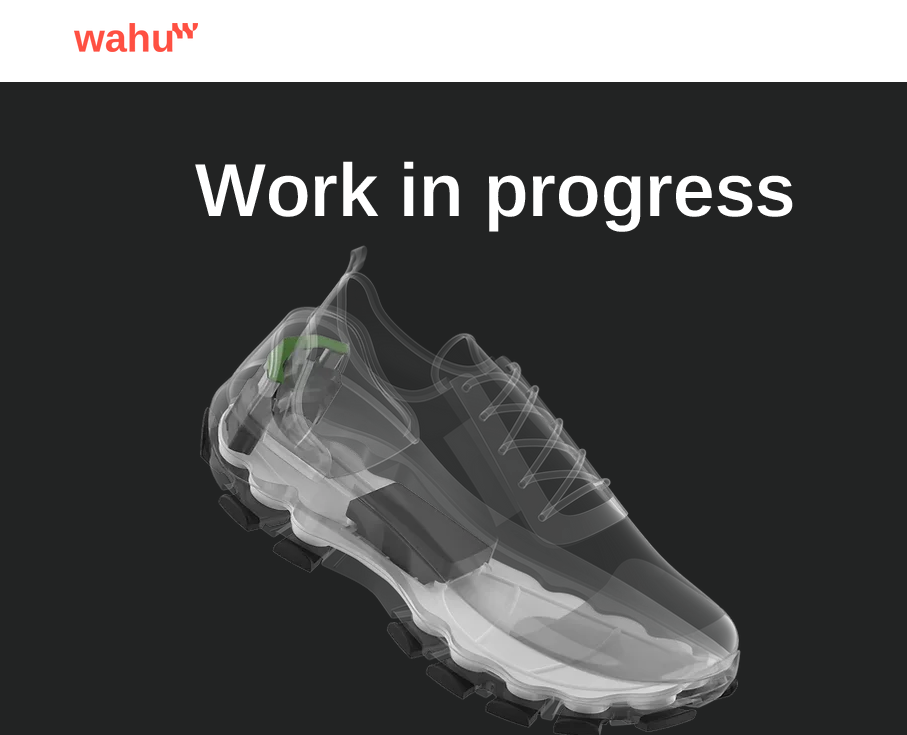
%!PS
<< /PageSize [907 735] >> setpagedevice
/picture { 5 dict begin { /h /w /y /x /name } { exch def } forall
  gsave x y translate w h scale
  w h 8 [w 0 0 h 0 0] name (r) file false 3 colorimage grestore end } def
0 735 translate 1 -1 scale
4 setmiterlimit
1 setgray
0 0 907 735 rectfill
(img1.rgb) 74 23 124 29 picture
0.133 0.137 0.137 setrgbcolor
0 82 907 653 rectfill
/Arimo-SemiBold [75 0 0 -75 0 0] selectfont
1 setgray
195 216 moveto (Work in progress) show
(img2.rgb) 200 245 541 490 picture
showpage
